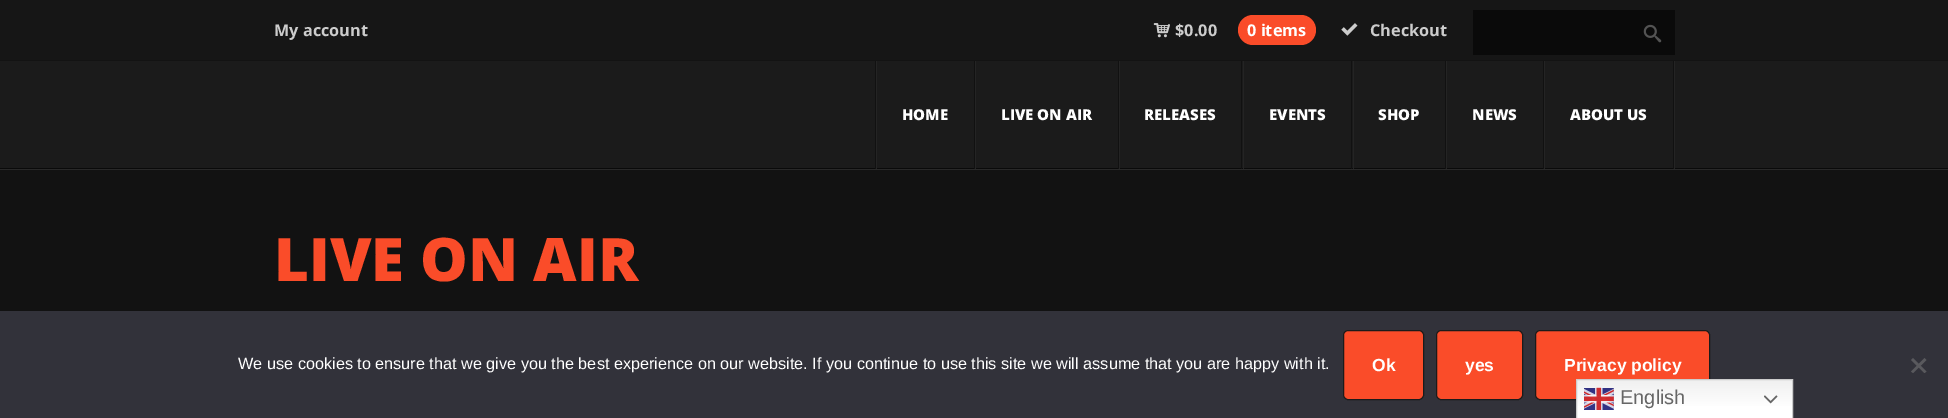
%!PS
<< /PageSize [1948 418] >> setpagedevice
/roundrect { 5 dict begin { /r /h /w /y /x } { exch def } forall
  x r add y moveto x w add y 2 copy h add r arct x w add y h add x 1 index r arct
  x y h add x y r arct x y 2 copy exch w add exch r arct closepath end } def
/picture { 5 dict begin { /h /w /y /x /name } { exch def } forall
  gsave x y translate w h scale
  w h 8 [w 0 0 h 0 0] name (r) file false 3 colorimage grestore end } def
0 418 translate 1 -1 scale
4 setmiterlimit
0.161 setgray
0 0 1948 418 rectfill
0.086 setgray
0 0 1948 60 rectfill
0.075 setgray
0 60 1948 1 rectfill
/OpenSans-Bold [16.25 0 0 -16.25 0 0] selectfont
0.8 setgray
274 36 moveto (My account) show
(img1.rgb) 1153 23 17 15 picture
1175 36 moveto ($0.00) show
0.98 0.298 0.161 setrgbcolor
1238 15 78 30 15 roundrect fill
1 setgray
1247 36 moveto (0 items) show
(img2.rgb) 1341 23 17 13 picture
0.8 setgray
1370 36 moveto (Checkout) show
0.039 setgray
1473 10 202 45 rectfill
(img3.rgb) 1643 24 19 19 picture
0.106 setgray
0 61 1948 107 rectfill
0.039 setgray
0 168 1948 1 rectfill
0.141 setgray
1674 61 1 108 rectfill
0.067 setgray
875 61 1 108 rectfill
974 61 1 108 rectfill
0.141 setgray
876 61 1 108 rectfill
/OpenSans-ExtraBold [15 0 0 -15 0 0] selectfont
1 setgray
902 120 moveto (HOME) show
0.067 setgray
1118 61 1 108 rectfill
0.141 setgray
975 61 1 108 rectfill
1 setgray
1001 120 moveto (LIVE ON AIR) show
0.067 setgray
1241 61 1 108 rectfill
0.141 setgray
1119 61 1 108 rectfill
1 setgray
1144 120 moveto (RELEASES) show
0.067 setgray
1351 61 1 108 rectfill
0.141 setgray
1243 61 1 108 rectfill
1 setgray
1269 120 moveto (EVENTS) show
0.067 setgray
1445 61 1 108 rectfill
0.141 setgray
1353 61 1 108 rectfill
1 setgray
1378 120 moveto (SHOP) show
0.067 setgray
1543 61 1 108 rectfill
0.141 setgray
1446 61 1 108 rectfill
1 setgray
1472 120 moveto (NEWS) show
0.067 setgray
1673 61 1 108 rectfill
0.141 setgray
1544 61 1 108 rectfill
1 setgray
1570 120 moveto (ABOUT US) show
gsave newpath 0 170 moveto 1948 170 lineto 1948 311 lineto 0 311 lineto closepath clip newpath
<< /ShadingType 2 /ColorSpace /DeviceRGB /Coords [974 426 974 170] /Extend [true true] /Function << /FunctionType 3 /Domain [0 1] /Functions [<< /FunctionType 2 /Domain [0 1] /C0 [0.063 0.063 0.063] /C1 [0.075 0.075 0.075] /N 1 >> << /FunctionType 2 /Domain [0 1] /C0 [0.075 0.075 0.075] /C1 [0.071 0.071 0.071] /N 1 >>] /Bounds [0.4] /Encode [0 1 0 1] >> >> shfill grestore
/OpenSans-ExtraBold [60 0 0 -60 0 0] selectfont
0.98 0.298 0.161 setrgbcolor
274 281 moveto (LIVE ON AIR) show
0.196 0.196 0.227 setrgbcolor
0 311 1948 107 rectfill
/LiberationSans-Regular [16.25 0 0 -16.25 0 0] selectfont
1 setgray
238 369 moveto (We use cookies to ensure that we give you the best experience on our website. If you continue to use this site we will assume that you are happy with it.) show
0.98 0.298 0.161 setrgbcolor
1343.5 330.5 80 69 4.5 roundrect gsave fill grestore
0.106 setgray
stroke
/LiberationSans-Bold [17.5 0 0 -17.5 0 0] selectfont
1 setgray
1372 371 moveto (Ok) show
0.98 0.298 0.161 setrgbcolor
1436.5 330.5 86 69 4.5 roundrect gsave fill grestore
0.106 setgray
stroke
1 setgray
1465 371 moveto (yes) show
0.98 0.298 0.161 setrgbcolor
1535.5 330.5 174 69 4.5 roundrect gsave fill grestore
0.106 setgray
stroke
1 setgray
1564 371 moveto (Privacy policy) show
0.349 0.349 0.365 setrgbcolor
newpath 1924.5 358 moveto 1926.5 360 lineto 1913 373 lineto 1911 371.5 lineto closepath fill
newpath 1911 360 moveto 1913 358 lineto 1926.5 371.5 lineto 1924.5 373 lineto closepath fill
gsave newpath 1577 380 moveto 1792 380 lineto 1792 418 lineto 1577 418 lineto closepath clip newpath
<< /ShadingType 2 /ColorSpace /DeviceRGB /Coords [1684 379 1684 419] /Extend [true true] /Function << /FunctionType 3 /Domain [0 1] /Functions [<< /FunctionType 2 /Domain [0 1] /C0 [0.937 0.937 0.937] /C1 [1 1 1] /N 1 >> << /FunctionType 2 /Domain [0 1] /C0 [1 1 1] /C1 [1 1 1] /N 1 >>] /Bounds [0.7] /Encode [0 1 0 1] >> >> shfill grestore
0.8 setgray
1576.5 379.5 216 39 rectstroke
(img4.rgb) 1584 387 30 23 picture
/LiberationSans-Regular [20 0 0 -20 0 0] selectfont
0.4 setgray
1620 404 moveto (English) show
(img5.rgb) 1764 395 14 9 picture
showpage
